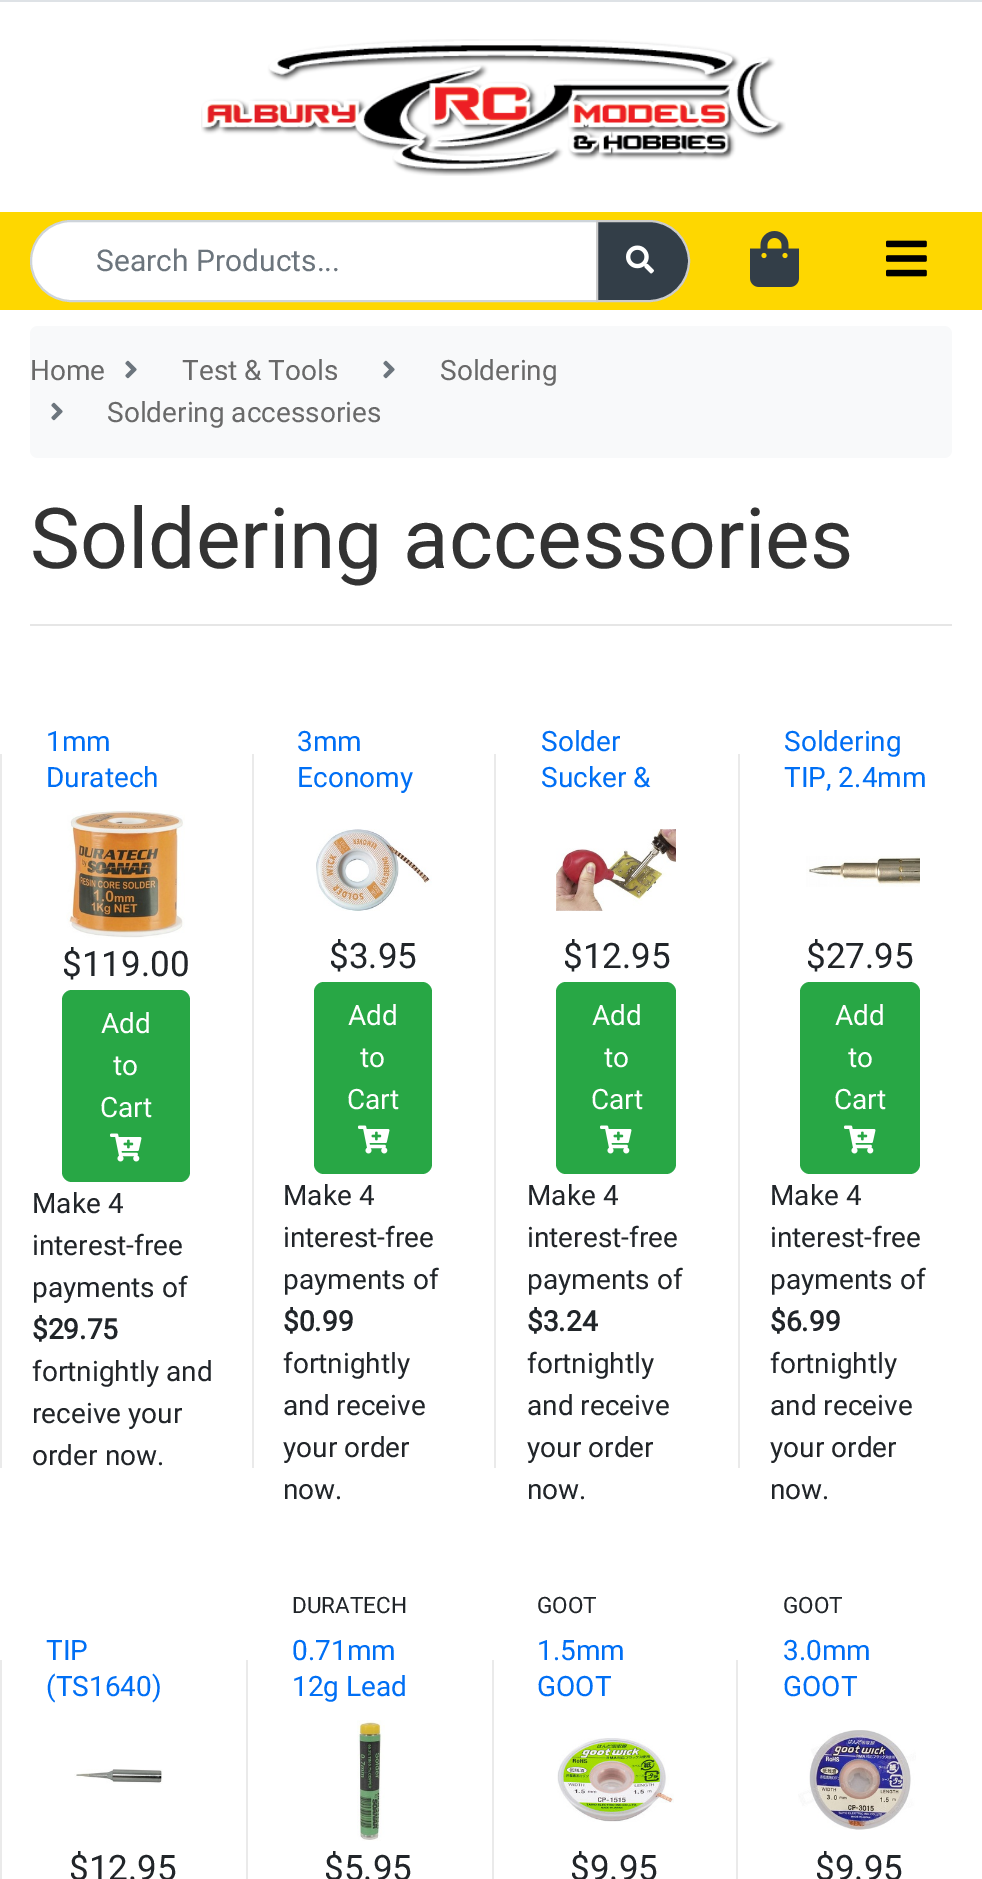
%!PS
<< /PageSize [982 1879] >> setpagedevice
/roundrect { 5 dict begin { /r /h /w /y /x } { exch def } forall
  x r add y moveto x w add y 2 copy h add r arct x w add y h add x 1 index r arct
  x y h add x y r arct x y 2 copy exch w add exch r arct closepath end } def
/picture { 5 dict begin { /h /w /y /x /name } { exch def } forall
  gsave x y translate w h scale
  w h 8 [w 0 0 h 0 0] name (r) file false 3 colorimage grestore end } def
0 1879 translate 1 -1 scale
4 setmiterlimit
1 setgray
0 0 982 1879 rectfill
0.871 0.886 0.902 setrgbcolor
0 0 982 2 rectfill
(img1.rgb) 201 39 585 137 picture
0.996 0.843 0 setrgbcolor
0 212 982 98 rectfill
1 setgray
newpath 71 221 moveto 597 221 lineto 597 301 lineto 71 301 lineto 49 301 31 283 31 261 curveto 31 239 49 221 71 221 curveto closepath gsave fill grestore
0.808 0.831 0.855 setrgbcolor
2 setlinewidth
stroke
/Roboto-Regular [30 0 0 -30 0 0] selectfont
0.424 0.459 0.49 setrgbcolor
96 271 moveto (Search Products...) show
0.2 0.243 0.282 setrgbcolor
newpath 597 221 moveto 649 221 lineto 671 221 689 239 689 261 curveto 689 283 671 301 649 301 curveto 597 301 lineto closepath gsave fill grestore
0.8 setgray
stroke
(img2.rgb) 626 245 28 29 picture
(img3.rgb) 750 231 49 56 picture
(img4.rgb) 886 240 41 37 picture
0.973 0.976 0.98 setrgbcolor
30 326 922 132 8 roundrect fill
/Roboto-Regular [28 0 0 -28 0 0] selectfont
0.412 setgray
30 380 moveto (Home) show
(img5.rgb) 125 360 12 19 picture
182 380 moveto (Test & Tools) show
(img5.rgb) 383 360 12 19 picture
440 380 moveto (Soldering) show
(img5.rgb) 51 402 12 19 picture
0.973 0.976 0.98 setrgbcolor
82 380 324 64 8 roundrect fill
0.412 setgray
107 422 moveto (Soldering accessories) show
/Roboto-Regular [84 0 0 -84 0 0] selectfont
0.2 setgray
30 568 moveto (Soldering accessories) show
0.902 setgray
30 624 922 2 rectfill
0.918 setgray
0 754 2 714 rectfill
/Roboto-Regular [28 0 0 -28 0 0] selectfont
0 0.435 0.961 setrgbcolor
46 751 moveto (1mm) show
46 787 moveto (Duratech) show
(img6.rgb) 66 810 119 128 picture
/Roboto-Regular [35 0 0 -35 0 0] selectfont
0.129 0.145 0.161 setrgbcolor
62 976 moveto ($119.00) show
0.157 0.655 0.271 setrgbcolor
62 990 128 192 10 roundrect fill
/Roboto-Regular [28 0 0 -28 0 0] selectfont
1 setgray
101 1033 moveto (Add) show
113 1075 moveto (to) show
100 1117 moveto (Cart) show
(img7.rgb) 110 1133 32 29 picture
0.129 0.145 0.161 setrgbcolor
32 1213 moveto (Make 4) show
32 1255 moveto (interest-free) show
32 1297 moveto (payments of) show
/Roboto-Bold [28 0 0 -28 0 0] selectfont
32 1339 moveto ($29.75) show
/Roboto-Regular [28 0 0 -28 0 0] selectfont
32 1381 moveto (fortnightly and) show
32 1423 moveto (receive your) show
32 1465 moveto (order now.) show
0.918 setgray
252 754 2 714 rectfill
0 0.435 0.961 setrgbcolor
297 751 moveto (3mm) show
297 787 moveto (Economy) show
(img8.rgb) 316 829 116 82 picture
/Roboto-Regular [35 0 0 -35 0 0] selectfont
0.129 0.145 0.161 setrgbcolor
329 968 moveto ($3.95) show
0.157 0.655 0.271 setrgbcolor
314 982 118 192 10 roundrect fill
/Roboto-Regular [28 0 0 -28 0 0] selectfont
1 setgray
348 1025 moveto (Add) show
360 1067 moveto (to) show
347 1109 moveto (Cart) show
(img7.rgb) 358 1125 32 29 picture
0.129 0.145 0.161 setrgbcolor
283 1205 moveto (Make 4) show
283 1247 moveto (interest-free) show
283 1289 moveto (payments of) show
/Roboto-Bold [28 0 0 -28 0 0] selectfont
283 1331 moveto ($0.99) show
/Roboto-Regular [28 0 0 -28 0 0] selectfont
283 1373 moveto (fortnightly) show
283 1415 moveto (and receive) show
283 1457 moveto (your order) show
283 1499 moveto (now.) show
0.918 setgray
494 754 2 714 rectfill
0 0.435 0.961 setrgbcolor
541 751 moveto (Solder) show
541 787 moveto (Sucker &) show
(img9.rgb) 556 829 120 82 picture
/Roboto-Regular [35 0 0 -35 0 0] selectfont
0.129 0.145 0.161 setrgbcolor
563 968 moveto ($12.95) show
0.157 0.655 0.271 setrgbcolor
556 982 120 192 10 roundrect fill
/Roboto-Regular [28 0 0 -28 0 0] selectfont
1 setgray
592 1025 moveto (Add) show
604 1067 moveto (to) show
591 1109 moveto (Cart) show
(img7.rgb) 600 1125 32 29 picture
0.129 0.145 0.161 setrgbcolor
527 1205 moveto (Make 4) show
527 1247 moveto (interest-free) show
527 1289 moveto (payments of) show
/Roboto-Bold [28 0 0 -28 0 0] selectfont
527 1331 moveto ($3.24) show
/Roboto-Regular [28 0 0 -28 0 0] selectfont
527 1373 moveto (fortnightly) show
527 1415 moveto (and receive) show
527 1457 moveto (your order) show
527 1499 moveto (now.) show
0.918 setgray
738 754 2 714 rectfill
0 0.435 0.961 setrgbcolor
784 751 moveto (Soldering) show
784 787 moveto (TIP, 2.4mm) show
(img10.rgb) 806 856 114 31 picture
/Roboto-Regular [35 0 0 -35 0 0] selectfont
0.129 0.145 0.161 setrgbcolor
806 968 moveto ($27.95) show
0.157 0.655 0.271 setrgbcolor
800 982 120 192 10 roundrect fill
/Roboto-Regular [28 0 0 -28 0 0] selectfont
1 setgray
835 1025 moveto (Add) show
848 1067 moveto (to) show
834 1109 moveto (Cart) show
(img7.rgb) 844 1125 32 29 picture
0.129 0.145 0.161 setrgbcolor
770 1205 moveto (Make 4) show
770 1247 moveto (interest-free) show
770 1289 moveto (payments of) show
/Roboto-Bold [28 0 0 -28 0 0] selectfont
770 1331 moveto ($6.99) show
/Roboto-Regular [28 0 0 -28 0 0] selectfont
770 1373 moveto (fortnightly) show
770 1415 moveto (and receive) show
770 1457 moveto (your order) show
770 1499 moveto (now.) show
0.918 setgray
0 1660 2 219 rectfill
0 0.435 0.961 setrgbcolor
46 1660 moveto (TIP) show
46 1696 moveto (\(TS1640\)) show
(img11.rgb) 74 1769 89 15 picture
/Roboto-Regular [35 0 0 -35 0 0] selectfont
0.129 0.145 0.161 setrgbcolor
69 1880 moveto ($12.95) show
0.918 setgray
246 1660 2 219 rectfill
/Roboto-Regular [22.5 0 0 -22.5 0 0] selectfont
0.129 0.145 0.161 setrgbcolor
292 1613 moveto (DURATECH) show
/Roboto-Regular [28 0 0 -28 0 0] selectfont
0 0.435 0.961 setrgbcolor
292 1660 moveto (0.71mm) show
292 1696 moveto (12g Lead) show
(img12.rgb) 357 1720 28 121 picture
/Roboto-Regular [35 0 0 -35 0 0] selectfont
0.129 0.145 0.161 setrgbcolor
324 1880 moveto ($5.95) show
0.918 setgray
492 1660 2 219 rectfill
/Roboto-Regular [22.5 0 0 -22.5 0 0] selectfont
0.129 0.145 0.161 setrgbcolor
537 1613 moveto (GOOT) show
/Roboto-Regular [28 0 0 -28 0 0] selectfont
0 0.435 0.961 setrgbcolor
537 1660 moveto (1.5mm) show
537 1696 moveto (GOOT) show
(img13.rgb) 557 1738 117 84 picture
/Roboto-Regular [35 0 0 -35 0 0] selectfont
0.129 0.145 0.161 setrgbcolor
570 1880 moveto ($9.95) show
0.918 setgray
736 1660 2 219 rectfill
/Roboto-Regular [22.5 0 0 -22.5 0 0] selectfont
0.129 0.145 0.161 setrgbcolor
783 1613 moveto (GOOT) show
/Roboto-Regular [28 0 0 -28 0 0] selectfont
0 0.435 0.961 setrgbcolor
783 1660 moveto (3.0mm) show
783 1696 moveto (GOOT) show
(img14.rgb) 798 1730 118 100 picture
/Roboto-Regular [35 0 0 -35 0 0] selectfont
0.129 0.145 0.161 setrgbcolor
815 1880 moveto ($9.95) show
showpage
